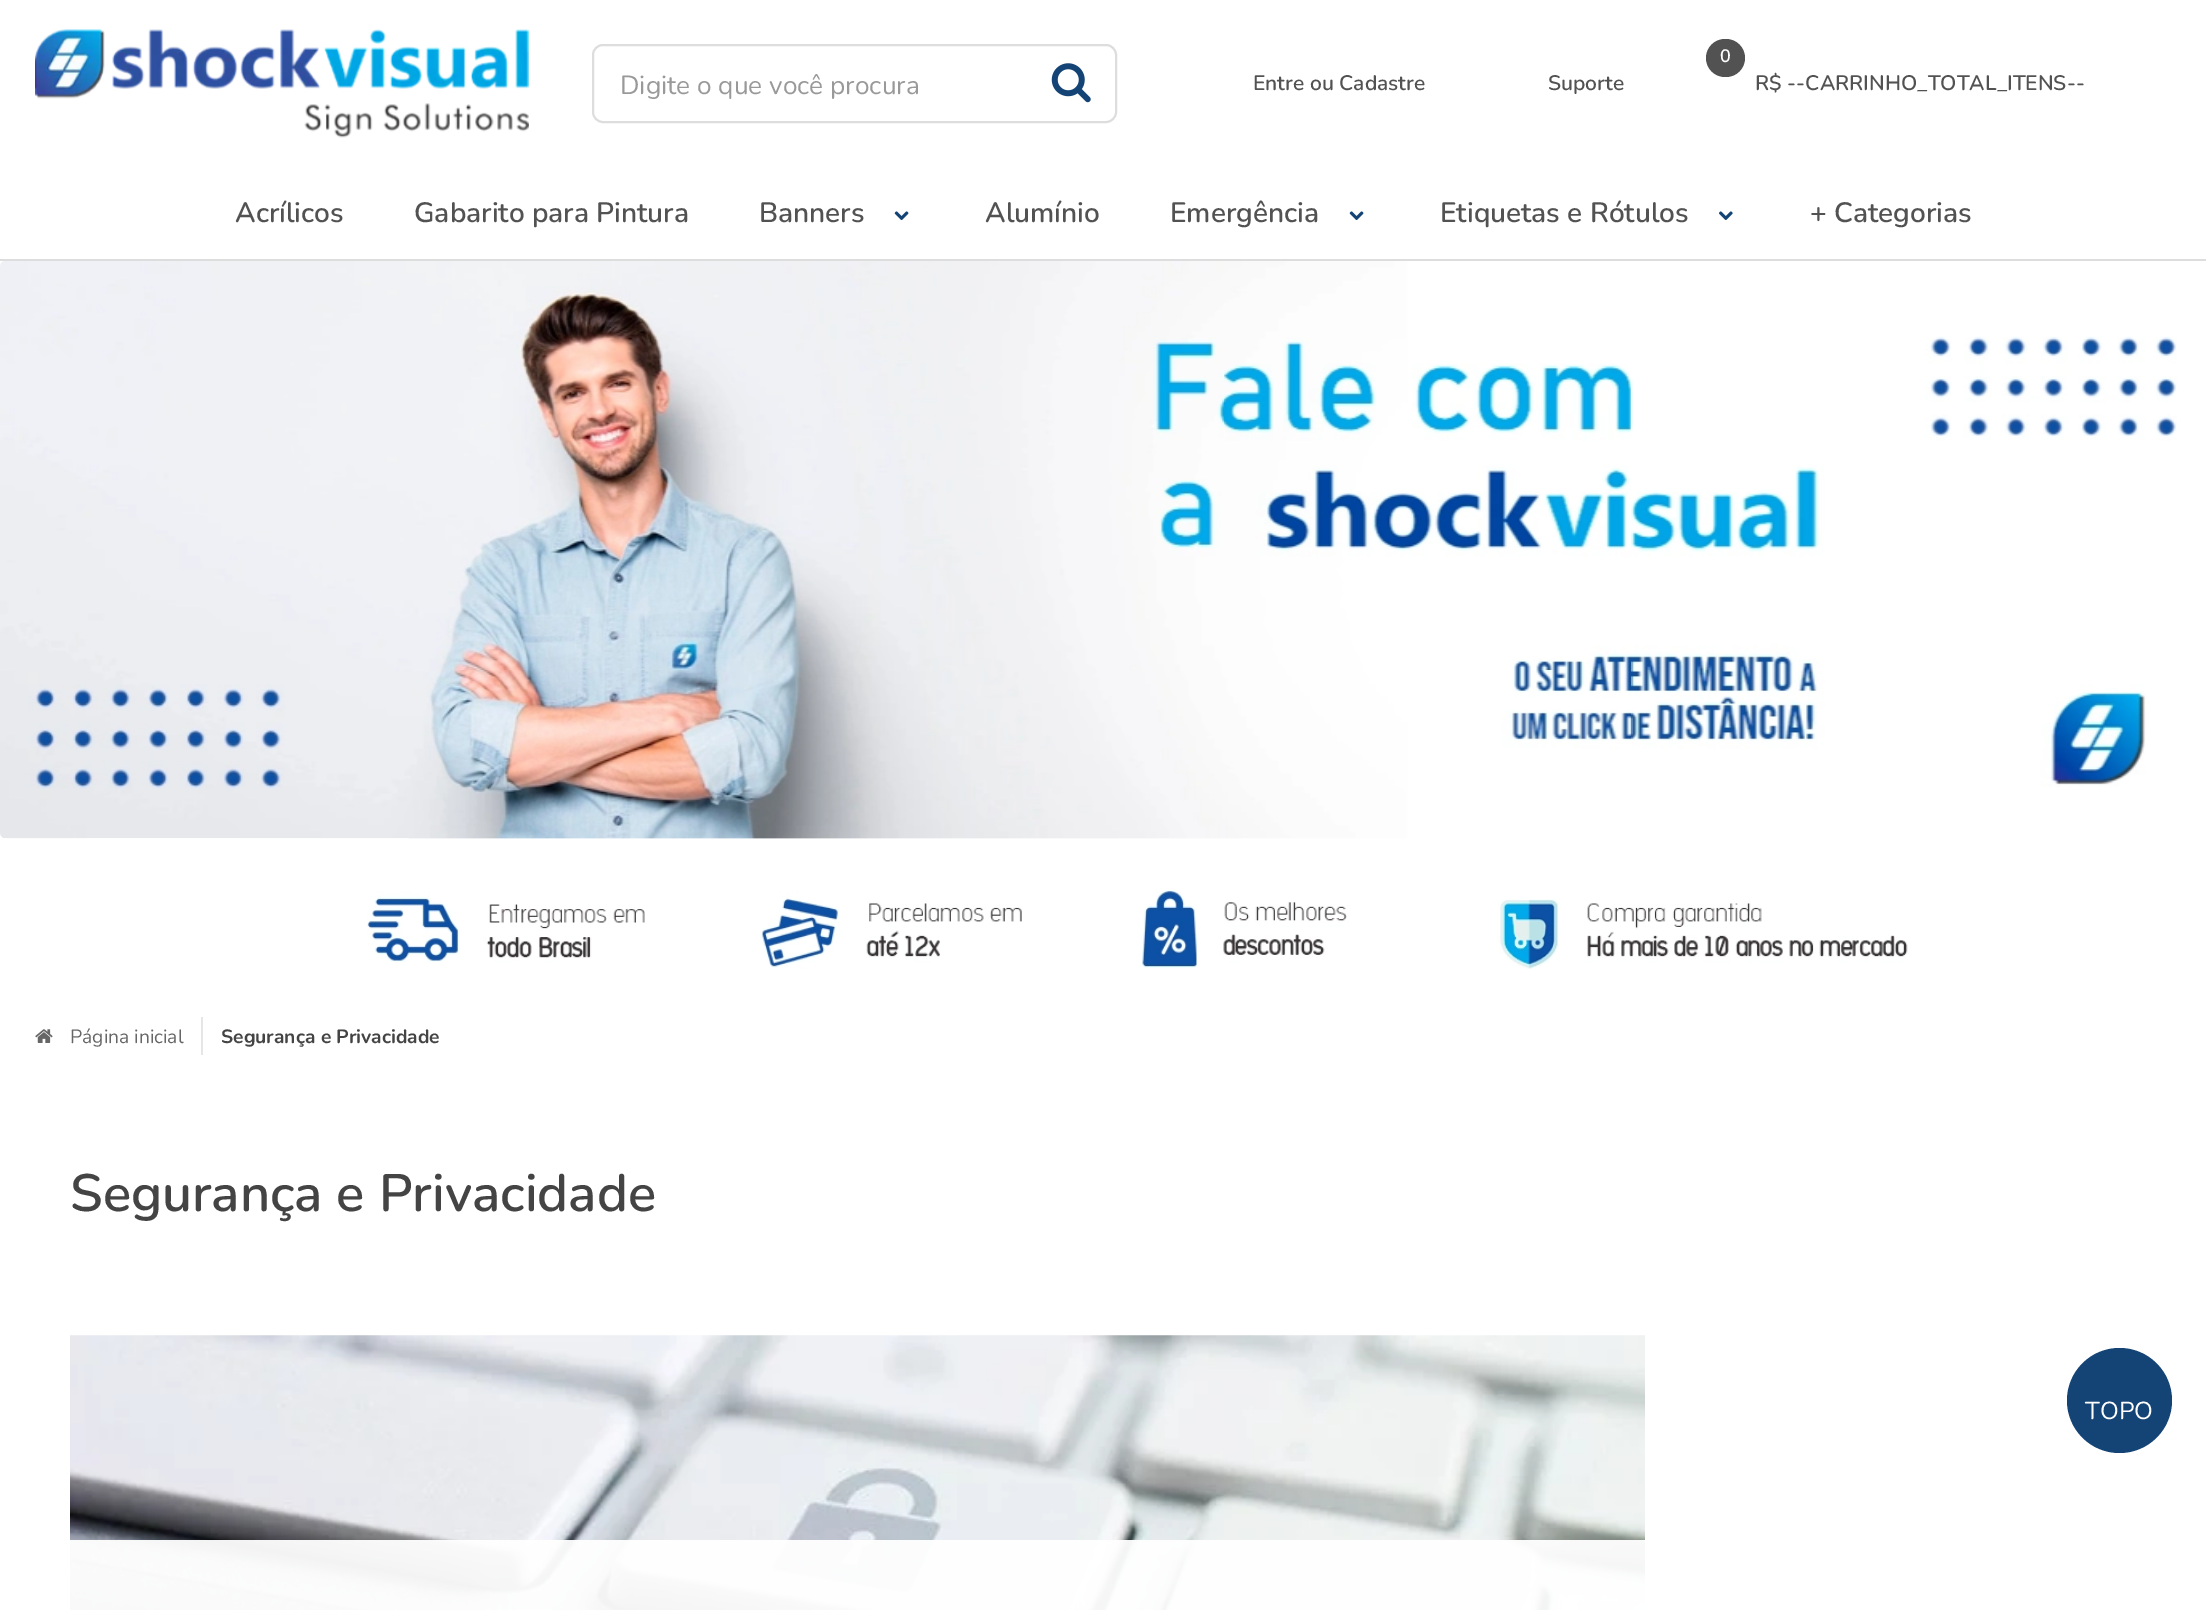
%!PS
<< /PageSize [2206 1610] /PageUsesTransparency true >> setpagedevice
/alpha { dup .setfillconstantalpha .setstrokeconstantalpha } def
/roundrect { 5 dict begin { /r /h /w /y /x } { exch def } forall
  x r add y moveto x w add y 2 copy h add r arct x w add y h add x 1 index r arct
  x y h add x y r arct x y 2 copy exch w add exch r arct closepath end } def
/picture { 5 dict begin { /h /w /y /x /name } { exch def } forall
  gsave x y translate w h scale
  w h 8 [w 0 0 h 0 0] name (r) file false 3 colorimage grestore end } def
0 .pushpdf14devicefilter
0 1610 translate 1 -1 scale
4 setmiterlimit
1 setgray
0 0 2206 1610 rectfill
0.867 setgray
0 259 2206 2 rectfill
(img1.rgb) 35 29 494 109 picture
2 setlinewidth
593 45 523 77 10 roundrect stroke
/Nunito-Regular [26.25 0 0 -26.25 0 0] selectfont
0.6 setgray
620 94 moveto (Digite o que você procura) show
(img2.rgb) 1051 63 40 40 picture
/Nunito-SemiBold [21 0 0 -21 0 0] selectfont
0.322 setgray
1253 90 moveto (Entre ou Cadastre) show
1548 90 moveto (Suporte) show
1706 39 39 38 19 roundrect fill
/Nunito-SemiBold [18 0 0 -18 0 0] selectfont
1 setgray
1720 62 moveto (0) show
/Nunito-SemiBold [21 0 0 -21 0 0] selectfont
0.322 setgray
1755 90 moveto (R$ --CARRINHO_TOTAL_ITENS--) show
/Nunito-SemiBold [28 0 0 -28 0 0] selectfont
235 222 moveto (Acrílicos) show
414 222 moveto (Gabarito para Pintura) show
759 222 moveto (Banners) show
(img3.rgb) 894 211 15 9 picture
985 222 moveto (Alumínio) show
1170 222 moveto (Emergência) show
(img3.rgb) 1349 211 15 9 picture
1440 222 moveto (Etiquetas e Rótulos) show
(img4.rgb) 1719 211 14 9 picture
1810 222 moveto (+ Categorias) show
(img5.rgb) 0 261 2177 578 picture
(img6.rgb) 367 890 1541 79 picture
(img7.rgb) 35 1029 18 14 picture
/Nunito-Regular [19.25 0 0 -19.25 0 0] selectfont
0.4 setgray
70 1043 moveto (Página inicial) show
0.902 setgray
201 1017 2 38 rectfill
/Nunito-Bold [19.25 0 0 -19.25 0 0] selectfont
0.267 setgray
221 1043 moveto (Segurança e Privacidade) show
/Nunito-SemiBold [52.5 0 0 -52.5 0 0] selectfont
70 1211 moveto (Segurança e Privacidade) show
(img8.rgb) 70 1335 1575 275 picture
0.078 0.263 0.459 setrgbcolor
newpath 2119.5 1400.5 52.5 0 360 arc closepath fill
/Nunito-Regular [24.5 0 0 -24.5 0 0] selectfont
1 setgray
2085 1419 moveto (TOPO) show
0.95 alpha
70 1540 1575 70 rectfill
.poppdf14devicefilter showpage
